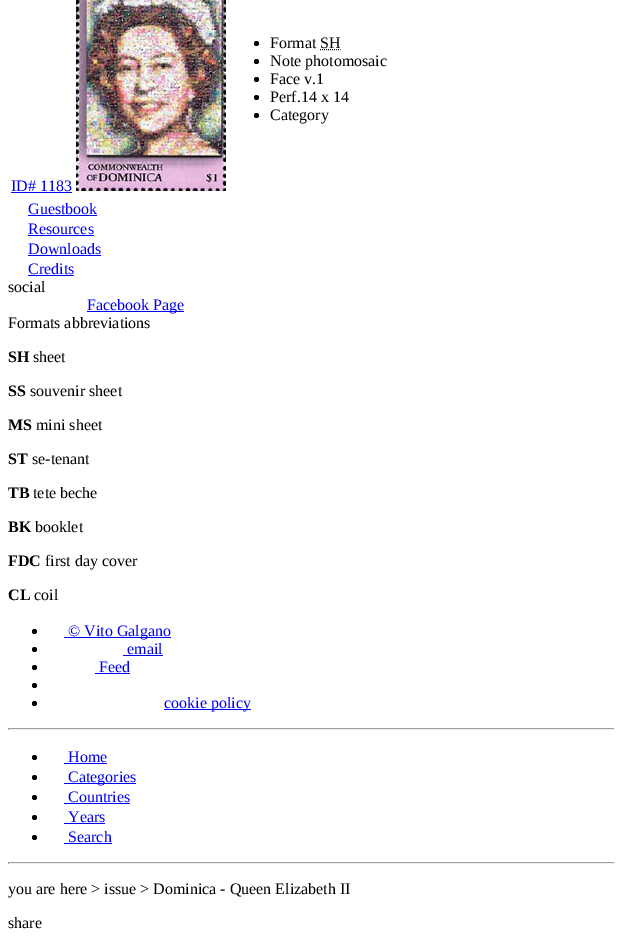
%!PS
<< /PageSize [623 948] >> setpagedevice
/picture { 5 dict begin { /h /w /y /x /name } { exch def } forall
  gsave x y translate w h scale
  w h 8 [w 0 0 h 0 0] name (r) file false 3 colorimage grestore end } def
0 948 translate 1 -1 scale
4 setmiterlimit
1 setgray
0 0 623 948 rectfill
0 setgray
newpath 256.5 43.5 2.5 0 360 arc closepath fill
/LiberationSerif-Regular [16 0 0 -16 0 0] selectfont
270 48 moveto (Format SH) show
[1 1] 0 setdash
newpath 320 49.5 moveto 340.5 49.5 lineto stroke
newpath 256.5 61.5 2.5 0 360 arc closepath fill
270 66 moveto (Note photomosaic) show
newpath 256.5 79.5 2.5 0 360 arc closepath fill
270 84 moveto (Face v.1) show
newpath 256.5 97.5 2.5 0 360 arc closepath fill
270 102 moveto (Perf.14 x 14) show
newpath 256.5 115.5 2.5 0 360 arc closepath fill
270 120 moveto (Category) show
0 0 0.933 setrgbcolor
11 191 moveto (ID# 1183) show
11 192 61 1 rectfill
(img1.rgb) 76 0 150 191 picture
28 214 moveto (Guestbook) show
28 215 69 1 rectfill
28 234 moveto (Resources) show
28 235 66 1 rectfill
28 254 moveto (Downloads) show
28 255 73 1 rectfill
28 274 moveto (Credits) show
28 275 46 1 rectfill
0 setgray
8 292 moveto (social) show
0 0 0.933 setrgbcolor
87 311 97 1 rectfill
87 310 moveto (Facebook Page) show
0 setgray
8 328 moveto (Formats abbreviations) show
/LiberationSerif-Bold [16 0 0 -16 0 0] selectfont
8 362 moveto (SH) show
/LiberationSerif-Regular [16 0 0 -16 0 0] selectfont
33 362 moveto (sheet) show
/LiberationSerif-Bold [16 0 0 -16 0 0] selectfont
8 396 moveto (SS) show
/LiberationSerif-Regular [16 0 0 -16 0 0] selectfont
30 396 moveto (souvenir sheet) show
/LiberationSerif-Bold [16 0 0 -16 0 0] selectfont
8 430 moveto (MS) show
/LiberationSerif-Regular [16 0 0 -16 0 0] selectfont
36 430 moveto (mini sheet) show
/LiberationSerif-Bold [16 0 0 -16 0 0] selectfont
8 464 moveto (ST) show
/LiberationSerif-Regular [16 0 0 -16 0 0] selectfont
32 464 moveto (se-tenant) show
/LiberationSerif-Bold [16 0 0 -16 0 0] selectfont
8 498 moveto (TB) show
/LiberationSerif-Regular [16 0 0 -16 0 0] selectfont
33 498 moveto (tete beche) show
/LiberationSerif-Bold [16 0 0 -16 0 0] selectfont
8 532 moveto (BK) show
/LiberationSerif-Regular [16 0 0 -16 0 0] selectfont
35 532 moveto (booklet) show
/LiberationSerif-Bold [16 0 0 -16 0 0] selectfont
8 566 moveto (FDC) show
/LiberationSerif-Regular [16 0 0 -16 0 0] selectfont
45 566 moveto (first day cover) show
/LiberationSerif-Bold [16 0 0 -16 0 0] selectfont
8 600 moveto (CL) show
/LiberationSerif-Regular [16 0 0 -16 0 0] selectfont
34 600 moveto (coil) show
newpath 34.5 631.5 2.5 0 360 arc closepath fill
0 0 0.933 setrgbcolor
64 637 107 1 rectfill
68 636 moveto (© Vito Galgano) show
0 setgray
newpath 34.5 649.5 2.5 0 360 arc closepath fill
0 0 0.933 setrgbcolor
127 654 moveto (email) show
123 655 40 1 rectfill
0 setgray
newpath 34.5 667.5 2.5 0 360 arc closepath fill
0 0 0.933 setrgbcolor
99 672 moveto (Feed) show
95 673 35 1 rectfill
0 setgray
newpath 34.5 685.5 2.5 0 360 arc closepath fill
newpath 34.5 703.5 2.5 0 360 arc closepath fill
0 0 0.933 setrgbcolor
164 709 87 1 rectfill
164 708 moveto (cookie policy) show
0.624 setgray
8 728 607 1 rectfill
0.933 setgray
614 728 1 2 rectfill
8 729 607 1 rectfill
0.624 setgray
8 728 1 2 rectfill
0 setgray
newpath 34.5 757.5 2.5 0 360 arc closepath fill
0 0 0.933 setrgbcolor
68 762 moveto (Home) show
64 763 43 1 rectfill
0 setgray
newpath 34.5 777.5 2.5 0 360 arc closepath fill
0 0 0.933 setrgbcolor
64 783 72 1 rectfill
68 782 moveto (Categories) show
0 setgray
newpath 34.5 797.5 2.5 0 360 arc closepath fill
0 0 0.933 setrgbcolor
68 802 moveto (Countries) show
64 803 66 1 rectfill
0 setgray
newpath 34.5 817.5 2.5 0 360 arc closepath fill
0 0 0.933 setrgbcolor
68 822 moveto (Years) show
64 823 41 1 rectfill
0 setgray
newpath 34.5 837.5 2.5 0 360 arc closepath fill
0 0 0.933 setrgbcolor
68 842 moveto (Search) show
64 843 48 1 rectfill
0.624 setgray
8 862 607 1 rectfill
0.933 setgray
614 862 1 2 rectfill
8 863 607 1 rectfill
0.624 setgray
8 862 1 2 rectfill
0 setgray
8 894 moveto (you are here > issue > Dominica - Queen Elizabeth II) show
8 928 moveto (share) show
showpage
